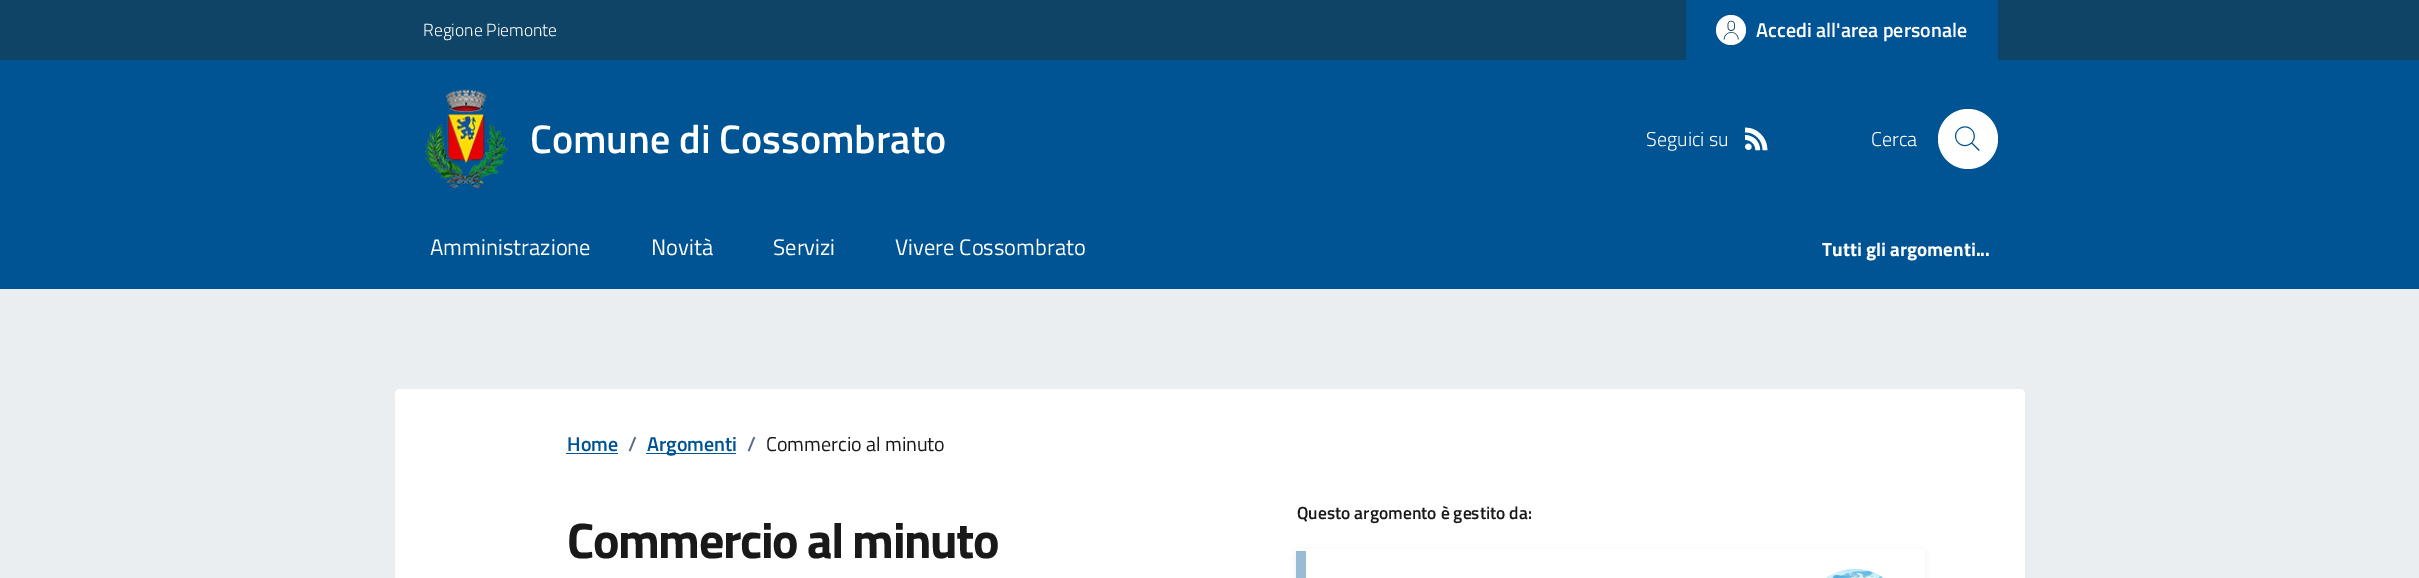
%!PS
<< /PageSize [2419 578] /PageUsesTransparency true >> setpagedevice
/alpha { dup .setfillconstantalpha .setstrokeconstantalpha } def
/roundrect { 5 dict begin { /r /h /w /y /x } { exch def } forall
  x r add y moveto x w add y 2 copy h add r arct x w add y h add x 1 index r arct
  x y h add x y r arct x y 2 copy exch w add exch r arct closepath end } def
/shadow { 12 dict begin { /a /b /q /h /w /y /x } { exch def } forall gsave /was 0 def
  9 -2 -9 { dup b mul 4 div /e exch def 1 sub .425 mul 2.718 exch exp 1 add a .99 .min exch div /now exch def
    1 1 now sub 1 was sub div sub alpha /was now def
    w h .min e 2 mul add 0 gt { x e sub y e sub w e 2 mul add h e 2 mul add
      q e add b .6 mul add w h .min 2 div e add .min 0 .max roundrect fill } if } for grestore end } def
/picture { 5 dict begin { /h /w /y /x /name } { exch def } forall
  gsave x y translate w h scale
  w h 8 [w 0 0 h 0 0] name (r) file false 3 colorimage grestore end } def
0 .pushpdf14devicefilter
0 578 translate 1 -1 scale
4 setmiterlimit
0.922 0.933 0.941 setrgbcolor
0 0 2419 578 rectfill
0.063 0.267 0.404 setrgbcolor
0 0 2419 60 rectfill
/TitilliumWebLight-Light [17.5 0 0 -17.5 0 0] selectfont
1 setgray
423 36 moveto (Regione Piemonte) show
0 0.329 0.576 setrgbcolor
1686 0 312 60 rectfill
1 setgray
newpath 1731 30 15 0 360 arc closepath fill
(img1.rgb) 1723 20 16 20 picture
/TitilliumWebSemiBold-SemiBold [20 0 0 -20 0 0] selectfont
1756 37 moveto (Accedi all'area personale) show
0 0.329 0.576 setrgbcolor
0 60 2419 229 rectfill
(img2.rgb) 425 89 83 99 picture
/TitilliumWebSemiBold-SemiBold [40 0 0 -40 0 0] selectfont
1 setgray
530 153 moveto (Comune di Cossombrato) show
/TitilliumWebLight-Light [20 0 0 -20 0 0] selectfont
1646 146 moveto (Seguici su) show
(img3.rgb) 1745 127 23 24 picture
1871 146 moveto (Cerca) show
newpath 1968 139 30 0 360 arc closepath fill
(img4.rgb) 1955 126 25 25 picture
/TitilliumWeb-Regular [22.5 0 0 -22.5 0 0] selectfont
430 255 moveto (Amministrazione) show
651 255 moveto (Novità) show
773 255 moveto (Servizi) show
895 255 moveto (Vivere Cossombrato) show
/TitilliumWeb-Bold [19.1 0 0 -19.1 0 0] selectfont
1822 256 moveto (Tutti gli argomenti...) show
395 389 1630 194 5 roundrect fill
/TitilliumWebSemiBold-SemiBold [20 0 0 -20 0 0] selectfont
0 0.329 0.576 setrgbcolor
567 451 moveto (Home) show
566 453 52 1 rectfill
0.365 0.439 0.514 setrgbcolor
628 451 moveto (/) show
0 0.329 0.576 setrgbcolor
646 453 90 1 rectfill
647 451 moveto (Argomenti) show
0.365 0.439 0.514 setrgbcolor
747 451 moveto (/) show
/TitilliumWeb-Regular [20 0 0 -20 0 0] selectfont
0.098 setgray
766 451 moveto (Commercio al minuto) show
/TitilliumWebSemiBold-SemiBold [17.5 0 0 -17.5 0 0] selectfont
1297 519 moveto (Questo argomento è gestito da:) show
0 setgray
1296 551 629 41 5 3 0.07 shadow
1 setgray
1296 549 629 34 5 roundrect fill
0.6 0.733 0.831 setrgbcolor
1296 551 10 27 rectfill
(img5.rgb) 1826 569 58 9 picture
/TitilliumWeb-Bold [50 0 0 -50 0 0] selectfont
0.098 setgray
567 558 moveto -1.5 0 (Commercio al minuto) ashow
.poppdf14devicefilter showpage
